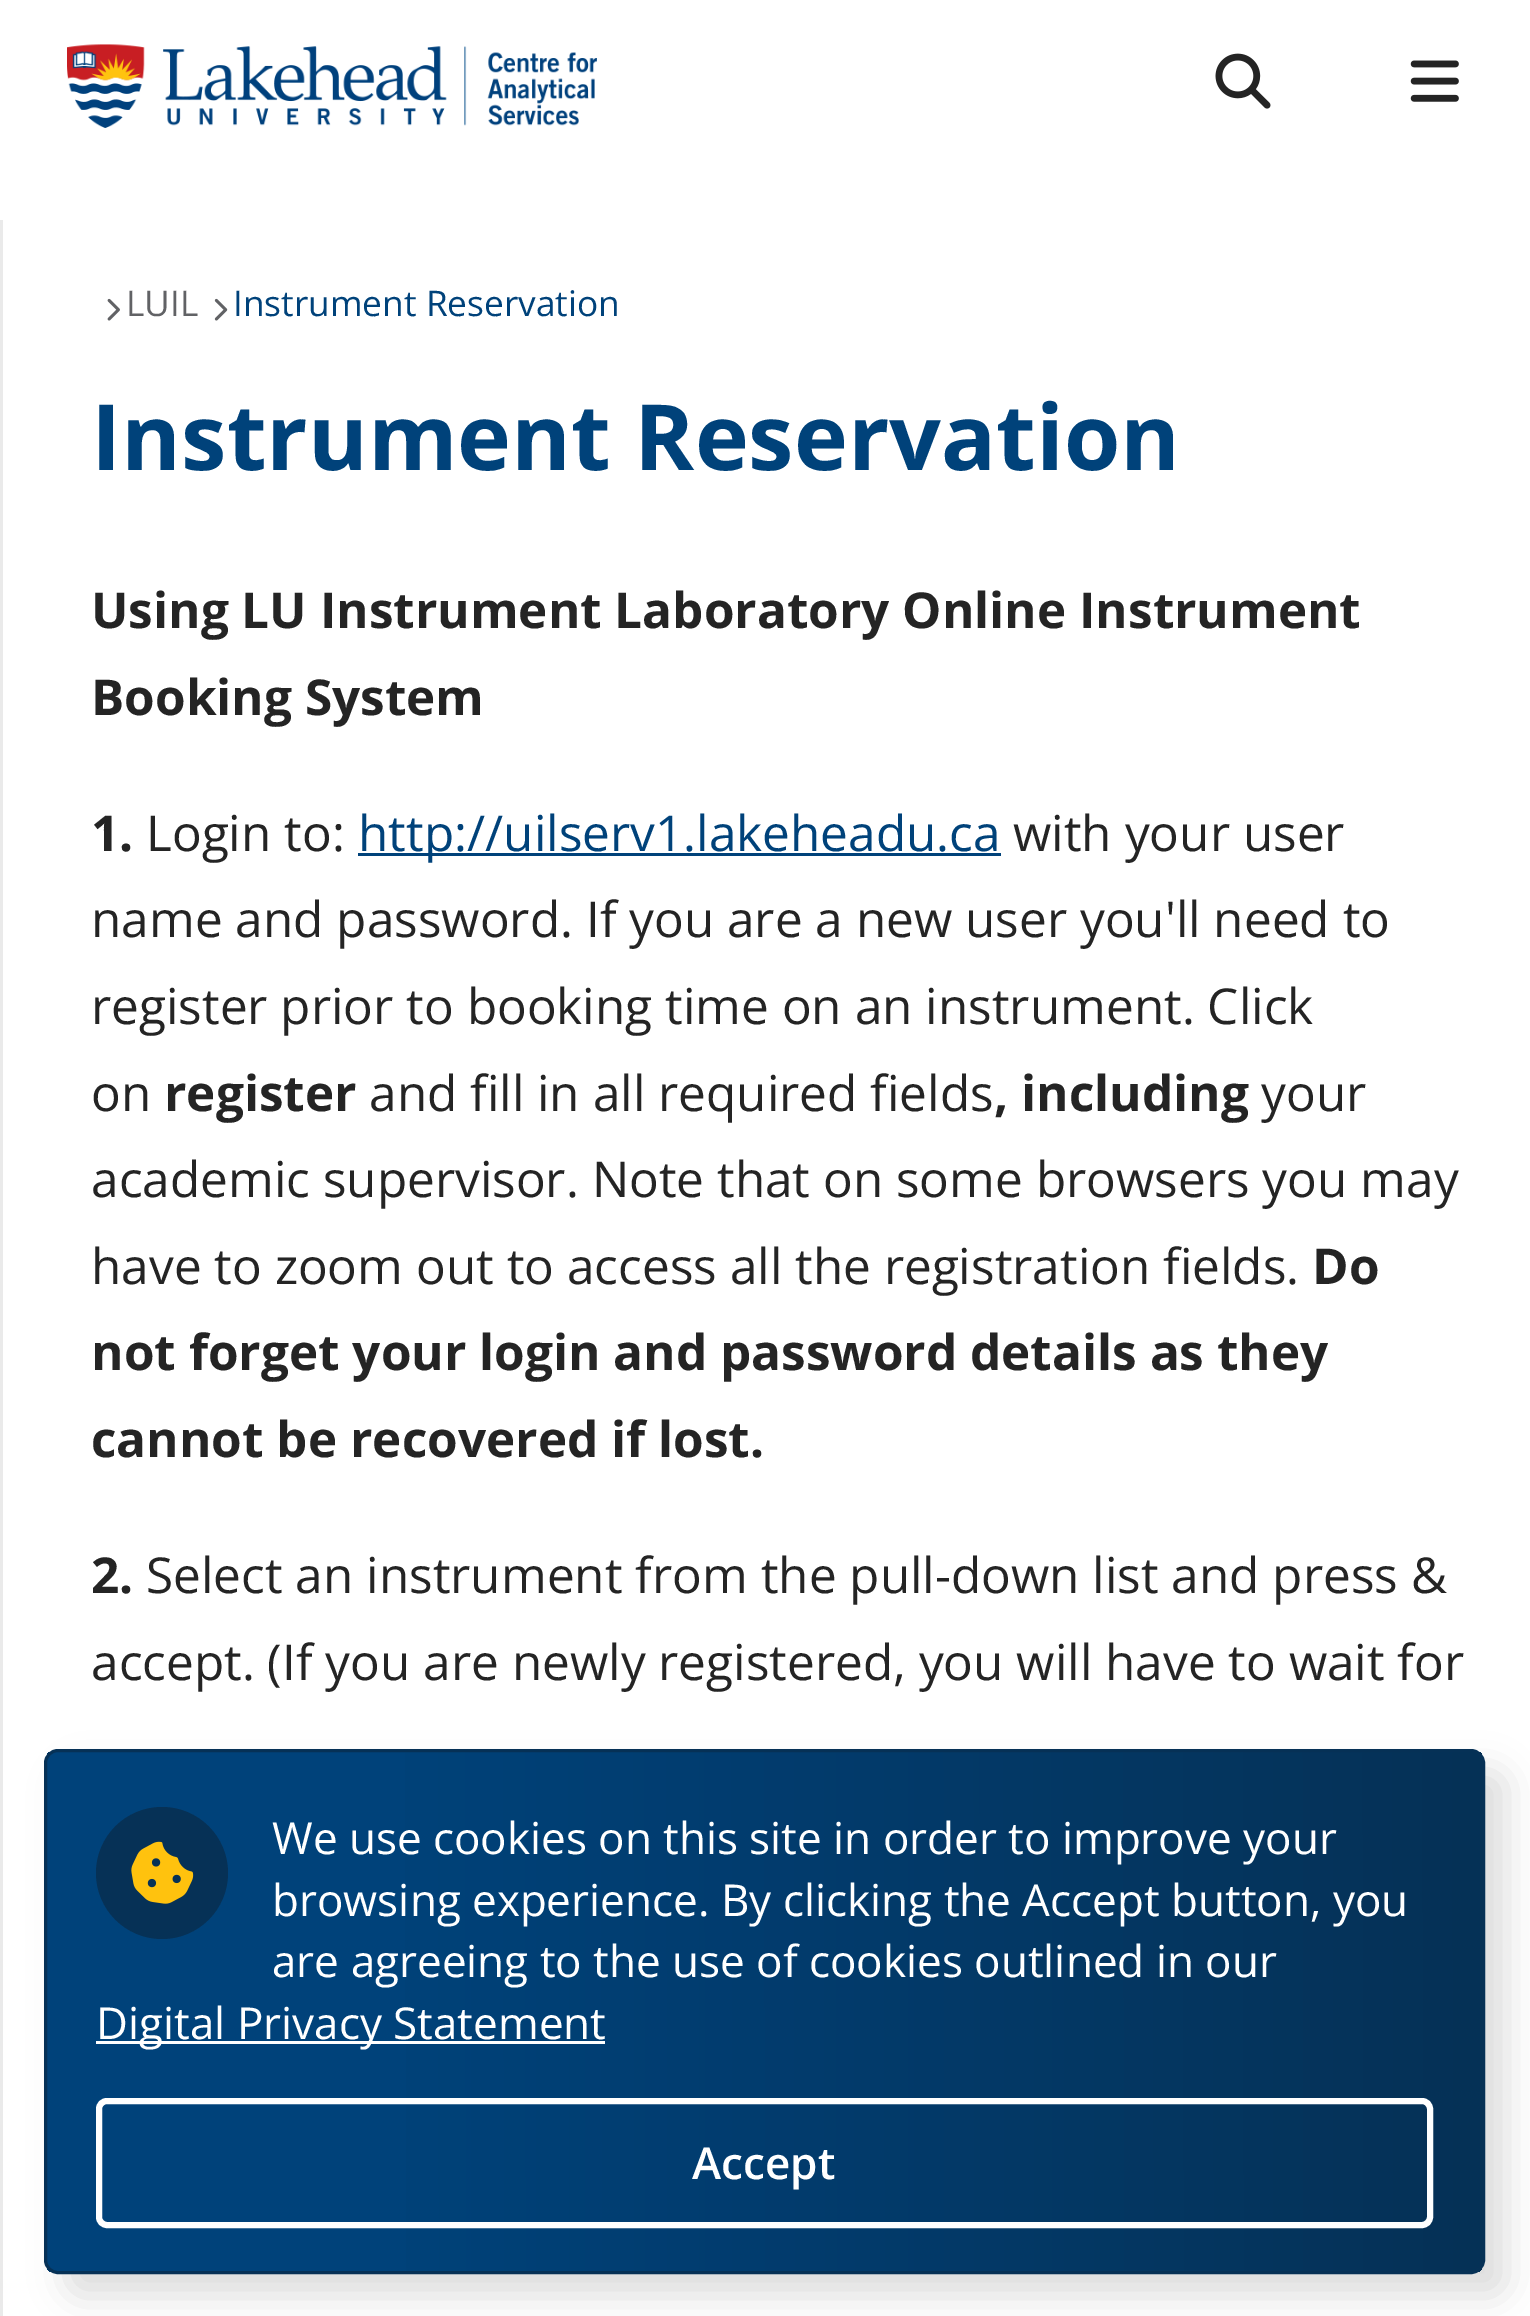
%!PS
<< /PageSize [1530 2316] /PageUsesTransparency true >> setpagedevice
/alpha { dup .setfillconstantalpha .setstrokeconstantalpha } def
/roundrect { 5 dict begin { /r /h /w /y /x } { exch def } forall
  x r add y moveto x w add y 2 copy h add r arct x w add y h add x 1 index r arct
  x y h add x y r arct x y 2 copy exch w add exch r arct closepath end } def
/shadow { 12 dict begin { /a /b /q /h /w /y /x } { exch def } forall gsave /was 0 def
  9 -2 -9 { dup b mul 4 div /e exch def 1 sub .425 mul 2.718 exch exp 1 add a .99 .min exch div /now exch def
    1 1 now sub 1 was sub div sub alpha /was now def
    w h .min e 2 mul add 0 gt { x e sub y e sub w e 2 mul add h e 2 mul add
      q e add b .6 mul add w h .min 2 div e add .min 0 .max roundrect fill } if } for grestore end } def
/picture { 5 dict begin { /h /w /y /x /name } { exch def } forall
  gsave x y translate w h scale
  w h 8 [w 0 0 h 0 0] name (r) file false 3 colorimage grestore end } def
0 .pushpdf14devicefilter
0 2316 translate 1 -1 scale
4 setmiterlimit
1 setgray
0 0 1530 2316 rectfill
(img1.rgb) 67 44 530 84 picture
(img2.rgb) 1215 53 56 56 picture
(img3.rgb) 1410 60 49 42 picture
0.918 setgray
0 220 3 2096 rectfill
(img4.rgb) 107 298 13 23 picture
/OpenSans-Regular [35.25 0 0 -35.25 0 0] selectfont
0.38 0.384 0.396 setrgbcolor
126 316 moveto (LUIL) show
(img5.rgb) 214 298 14 23 picture
0 0.259 0.478 setrgbcolor
233 316 moveto (Instrument Reservation) show
/OpenSans-Bold [91.25 0 0 -91.25 0 0] selectfont
91 470 moveto (Instrument Reservation) show
/OpenSans-Bold [49.5 0 0 -49.5 0 0] selectfont
0.141 setgray
91 628 moveto (Using LU Instrument Laboratory Online Instrument) show
91 715 moveto (Booking System) show
91 851 moveto (1.) show
/OpenSans-Regular [49.5 0 0 -49.5 0 0] selectfont
146 851 moveto (Login to:) show
0 0.259 0.478 setrgbcolor
358 853 643 3 rectfill
358 851 moveto (http://uilserv1.lakeheadu.ca) show
0.141 setgray
1013 851 moveto (with your user) show
91 937 moveto (name and password. If you are a new user you'll need to) show
91 1024 moveto (register prior to booking time on an instrument. Click) show
91 1111 moveto (on) show
/OpenSans-Bold [49.5 0 0 -49.5 0 0] selectfont
164 1111 moveto (register) show
/OpenSans-Regular [49.5 0 0 -49.5 0 0] selectfont
369 1111 moveto (and fill in all required fields) show
/OpenSans-Bold [49.5 0 0 -49.5 0 0] selectfont
994 1111 moveto (, including) show
/OpenSans-Regular [49.5 0 0 -49.5 0 0] selectfont
1261 1111 moveto (your) show
91 1197 moveto (academic supervisor. Note that on some browsers you may) show
91 1284 moveto (have to zoom out to access all the registration fields.) show
/OpenSans-Bold [49.5 0 0 -49.5 0 0] selectfont
1312 1284 moveto (Do) show
91 1370 moveto (not forget your login and password details as they) show
91 1457 moveto (cannot be recovered if lost.) show
91 1593 moveto (2.) show
/OpenSans-Regular [49.5 0 0 -49.5 0 0] selectfont
146 1593 moveto (Select an instrument from the pull-down list and press &) show
91 1680 moveto (accept. \(If you are newly registered, you will have to wait for) show
0 setgray
66 1771 1441 525 14 18 0.13 shadow
gsave
44 1749 1441 525 14 roundrect clip newpath
gsave newpath 47 1752 moveto 1482 1752 lineto 1482 2272 lineto 47 2272 lineto closepath clip newpath
<< /ShadingType 2 /ColorSpace /DeviceRGB /Coords [46 2013 1483 2010] /Extend [true true] /Function << /FunctionType 3 /Domain [0 1] /Functions [<< /FunctionType 2 /Domain [0 1] /C0 [0 0.259 0.478] /C1 [0 0.259 0.478] /N 1 >> << /FunctionType 2 /Domain [0 1] /C0 [0 0.259 0.478] /C1 [0.024 0.192 0.337] /N 1 >>] /Bounds [0.24] /Encode [0 1 0 1] >> >> shfill grestore
grestore
0.024 0.192 0.337 setrgbcolor
3 setlinewidth
45.5 1750.5 1438 522 12.5 roundrect stroke
newpath 162 1873 66 0 360 arc closepath fill
(img6.rgb) 131 1841 63 63 picture
/OpenSans-Regular [44 0 0 -44 0 0] selectfont
1 setgray
272 1854 moveto (We use cookies on this site in order to improve your) show
272 1916 moveto (browsing experience. By clicking the Accept button, you) show
272 1977 moveto (are agreeing to the use of cookies outlined in our) show
96 2041 509 3 rectfill
96 2039 moveto (Digital Privacy Statement) show
6 setlinewidth
99 2101 1331 124 8 roundrect stroke
/OpenSans-SemiBold [44 0 0 -44 0 0] selectfont
692 2179 moveto (Accept) show
.poppdf14devicefilter showpage
